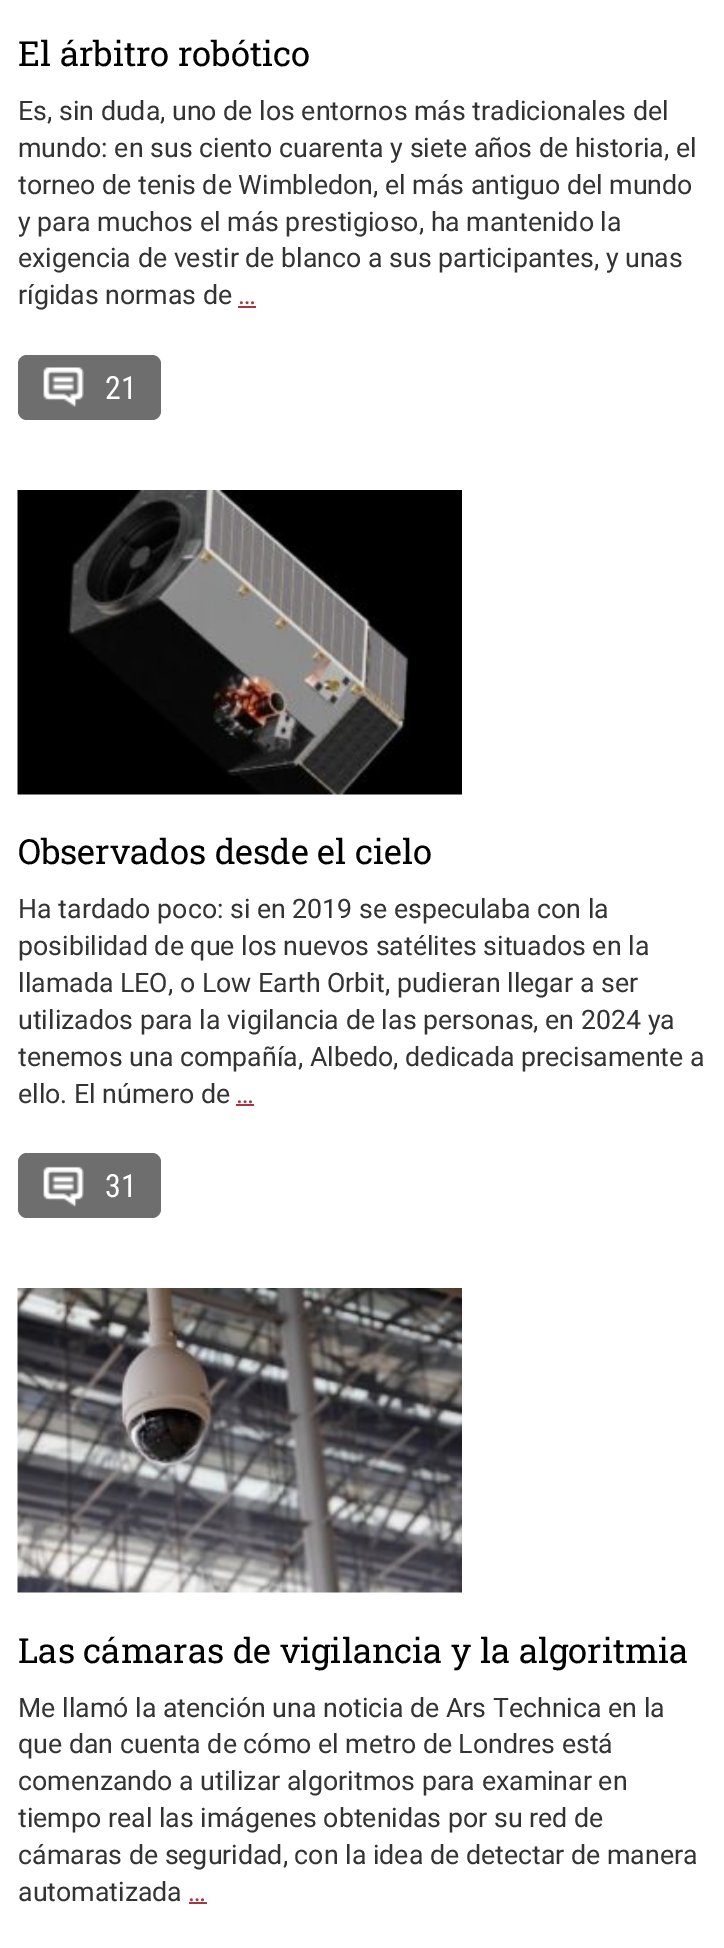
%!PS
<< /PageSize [724 1948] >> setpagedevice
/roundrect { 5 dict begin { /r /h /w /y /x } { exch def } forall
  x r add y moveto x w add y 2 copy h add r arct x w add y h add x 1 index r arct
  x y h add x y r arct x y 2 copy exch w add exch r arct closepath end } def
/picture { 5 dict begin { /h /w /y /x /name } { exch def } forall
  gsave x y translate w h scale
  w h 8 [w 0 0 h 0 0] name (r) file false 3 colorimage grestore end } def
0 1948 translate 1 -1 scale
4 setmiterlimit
1 setgray
0 0 724 1948 rectfill
/RobotoSlab-Regular [34.6 0 0 -34.6 0 0] selectfont
0 setgray
18 66 moveto (El árbitro robótico) show
/Roboto-Regular [26.75 0 0 -26.75 0 0] selectfont
0.2 setgray
18 120 moveto (Es, sin duda, uno de los entornos más tradicionales del) show
18 157 moveto (mundo: en sus ciento cuarenta y siete años de historia, el) show
18 194 moveto (torneo de tenis de Wimbledon, el más antiguo del mundo) show
18 231 moveto (y para muchos el más prestigioso, ha mantenido la) show
18 267 moveto (exigencia de vestir de blanco a sus participantes, y unas) show
18 304 moveto (rígidas normas de) show
0.635 0.22 0.259 setrgbcolor
238 304 moveto (…) show
238 306 18 2 rectfill
0.431 setgray
18 355 143 65 9 roundrect fill
(img1.rgb) 43 367 41 40 picture
/RobotoCondensed-Regular [32 0 0 -32 0 0] selectfont
1 setgray
105 399 moveto (21) show
(img2.rgb) 17 490 445 305 picture
/RobotoSlab-Regular [34.6 0 0 -34.6 0 0] selectfont
0 setgray
18 864 moveto (Observados desde el cielo) show
/Roboto-Regular [26.75 0 0 -26.75 0 0] selectfont
0.2 setgray
18 918 moveto (Ha tardado poco: si en 2019 se especulaba con la) show
18 955 moveto (posibilidad de que los nuevos satélites situados en la) show
18 992 moveto (llamada LEO, o Low Earth Orbit, pudieran llegar a ser) show
18 1029 moveto (utilizados para la vigilancia de las personas, en 2024 ya) show
18 1066 moveto (tenemos una compañía, Albedo, dedicada precisamente a) show
18 1103 moveto (ello. El número de) show
0.635 0.22 0.259 setrgbcolor
236 1103 moveto (…) show
236 1104 18 2 rectfill
0.431 setgray
18 1153 143 65 9 roundrect fill
(img3.rgb) 43 1166 41 41 picture
/RobotoCondensed-Regular [32 0 0 -32 0 0] selectfont
1 setgray
105 1197 moveto (31) show
(img4.rgb) 17 1288 445 305 picture
/RobotoSlab-Regular [34.6 0 0 -34.6 0 0] selectfont
0 setgray
18 1663 moveto (Las cámaras de vigilancia y la algoritmia) show
/Roboto-Regular [26.75 0 0 -26.75 0 0] selectfont
0.2 setgray
18 1717 moveto (Me llamó la atención una noticia de Ars Technica en la) show
18 1753 moveto (que dan cuenta de cómo el metro de Londres está) show
18 1790 moveto (comenzando a utilizar algoritmos para examinar en) show
18 1827 moveto (tiempo real las imágenes obtenidas por su red de) show
18 1864 moveto (cámaras de seguridad, con la idea de detectar de manera) show
18 1901 moveto (automatizada) show
0.635 0.22 0.259 setrgbcolor
188 1901 moveto (…) show
189 1902 18 2 rectfill
showpage
